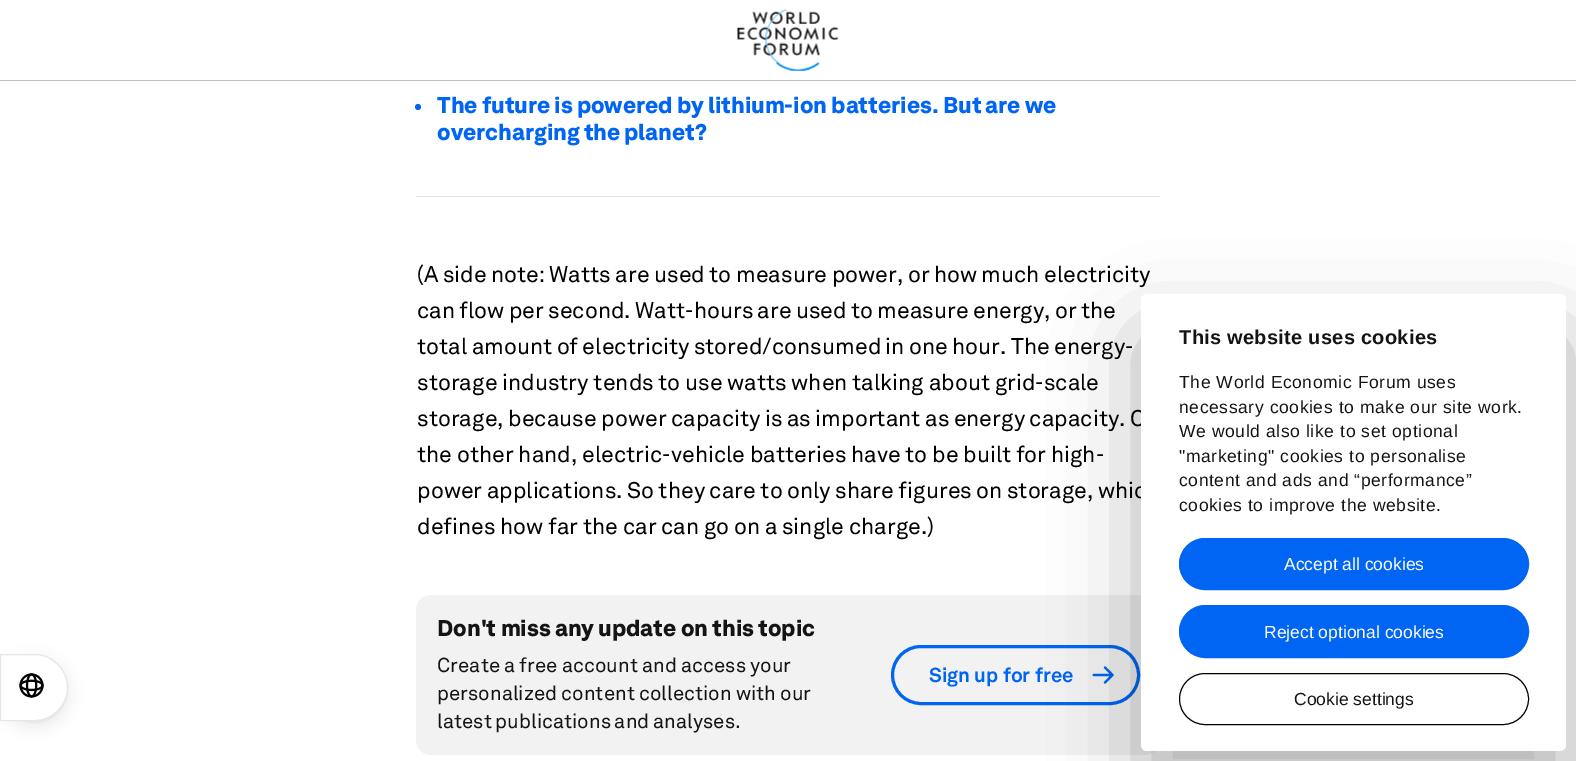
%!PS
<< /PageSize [1576 761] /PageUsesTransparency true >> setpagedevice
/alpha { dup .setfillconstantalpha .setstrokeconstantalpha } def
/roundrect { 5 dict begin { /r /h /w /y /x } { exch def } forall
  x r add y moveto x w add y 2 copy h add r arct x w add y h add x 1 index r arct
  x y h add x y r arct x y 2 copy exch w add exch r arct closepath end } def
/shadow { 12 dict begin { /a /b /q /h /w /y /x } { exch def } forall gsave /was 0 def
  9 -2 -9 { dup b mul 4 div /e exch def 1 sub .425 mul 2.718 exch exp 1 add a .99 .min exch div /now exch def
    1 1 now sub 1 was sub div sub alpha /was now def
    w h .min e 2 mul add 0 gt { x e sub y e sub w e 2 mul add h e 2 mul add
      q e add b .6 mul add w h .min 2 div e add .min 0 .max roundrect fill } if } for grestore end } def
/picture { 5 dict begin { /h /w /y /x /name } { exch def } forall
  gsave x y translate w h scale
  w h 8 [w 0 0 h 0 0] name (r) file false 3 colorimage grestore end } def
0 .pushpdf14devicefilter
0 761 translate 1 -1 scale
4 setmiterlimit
1 setgray
0 0 1576 761 rectfill
0.749 setgray
0 80 1576 1 rectfill
(img1.rgb) 737 9 102 62 picture
0 setgray
0 655 68 68 34 1 0.04 shadow
0 659 68 67 33.5 7.5 0.08 shadow
1 setgray
newpath 0.5 654.5 moveto 34.5 654.5 lineto 52.5 654.5 67.5 669.5 67.5 687.5 curveto 67.5 705.5 52.5 720.5 34.5 720.5 curveto 0.5 720.5 lineto closepath gsave fill grestore
0.902 setgray
stroke
(img2.rgb) 19 673 25 25 picture
0.898 setgray
416 196 744 1 rectfill
0 0.396 0.949 setrgbcolor
newpath 418 107 3 0 360 arc closepath fill
/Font-Black [22.5 0 0 -22.5 0 0] selectfont
437 113 moveto -0.5 0 32 (The future is powered by lithium-ion batteries. But are we) widthshow
437 140 moveto -1 0 32 (overcharging the planet?) widthshow
/Font-Regular [22.5 0 0 -22.5 0 0] selectfont
0 setgray
417 282 moveto -0.75 0 32 (\(A side note: Watts are used to measure power, or how much electricity) widthshow
417 318 moveto -0.9 0 32 (can flow per second. Watt-hours are used to measure energy, or the) widthshow
417 354 moveto -0.9 0 32 (total amount of electricity stored/consumed in one hour. The energy-) widthshow
417 390 moveto -0.5 0 32 (storage industry tends to use watts when talking about grid-scale) widthshow
417 426 moveto -0.75 0 32 (storage, because power capacity is as important as energy capacity. O) widthshow
417 462 moveto -0.5 0 32 (the other hand, electric-vehicle batteries have to be built for high-) widthshow
417 498 moveto -0.75 0 32 (power applications. So they care to only share figures on storage, whic) widthshow
417 534 moveto -0.5 0 32 (defines how far the car can go on a single charge.\)) widthshow
0.949 setgray
416 595 744 160 15 roundrect fill
/Font-Black [22.5 0 0 -22.5 0 0] selectfont
0.078 setgray
437 636 moveto -0.25 0 32 (Don't miss any update on this topic) widthshow
/Font-Regular [20 0 0 -20 0 0] selectfont
437 672 moveto -0.5 0 32 (Create a free account and access your) widthshow
437 700 moveto -0.5 0 32 (personalized content collection with our) widthshow
437 728 moveto -1 0 32 (latest publications and analyses.) widthshow
0 0.396 0.949 setrgbcolor
3 setlinewidth
892.5 646.5 246 57 28.5 roundrect stroke
/Font-Bold [20 0 0 -20 0 0] selectfont
929 682 moveto (Sign up for free) show
(img3.rgb) 1092 666 22 18 picture
0 setgray
1141 334 425 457 6 42.5 0.3 shadow
1 setgray
1141 294 425 457 6 roundrect fill
/LiberationSans-Bold [20 0 0 -20 0 0] selectfont
0.078 setgray
1179 344 moveto 0.3 0 (This website uses cookies) ashow
/LiberationSans-Regular [17.5 0 0 -17.5 0 0] selectfont
1179 388 moveto 0.6 0 (The World Economic Forum uses) ashow
1179 413 moveto 0.6 0 (necessary cookies to make our site work.) ashow
1179 437 moveto 0.6 0 (We would also like to set optional) ashow
1179 462 moveto 0.6 0 ("marketing" cookies to personalise) ashow
1179 486 moveto 0.6 0 (content and ads and “performance”) ashow
1179 511 moveto 0.6 0 (cookies to improve the website.) ashow
0 0.396 0.949 setrgbcolor
1179.5 538.5 349 51 25.5 roundrect gsave fill grestore
1 setlinewidth
stroke
1 setgray
1284 570 moveto (Accept all cookies) show
0 0.396 0.949 setrgbcolor
1179.5 605.5 349 52 26 roundrect gsave fill grestore
stroke
1 setgray
1264 638 moveto (Reject optional cookies) show
0 setgray
1179.5 673.5 349 51 25.5 roundrect stroke
0.078 setgray
1294 705 moveto (Cookie settings) show
.poppdf14devicefilter showpage
